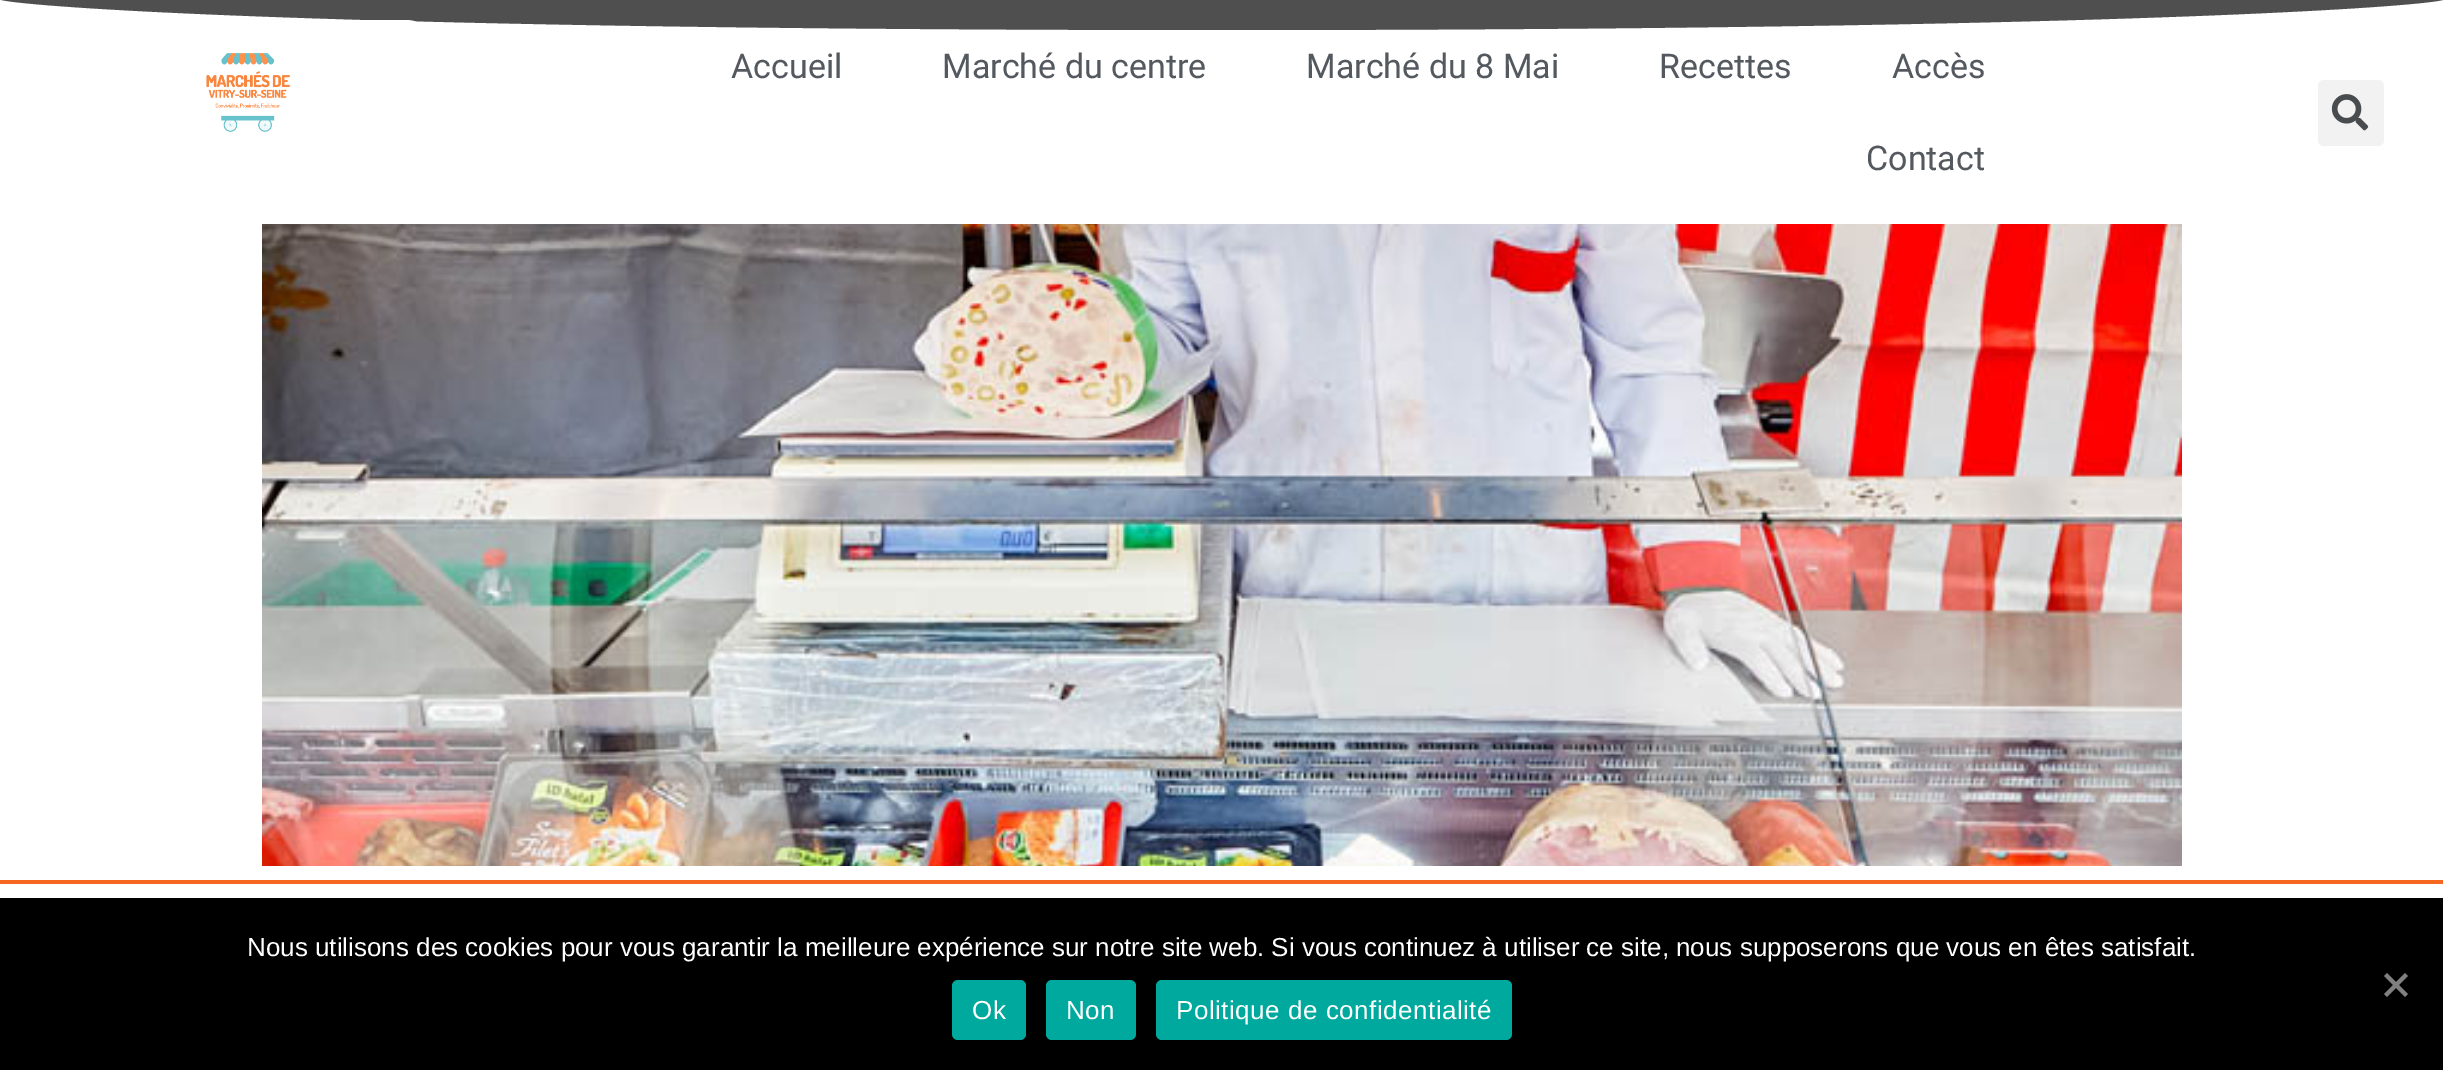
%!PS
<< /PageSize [2443 1070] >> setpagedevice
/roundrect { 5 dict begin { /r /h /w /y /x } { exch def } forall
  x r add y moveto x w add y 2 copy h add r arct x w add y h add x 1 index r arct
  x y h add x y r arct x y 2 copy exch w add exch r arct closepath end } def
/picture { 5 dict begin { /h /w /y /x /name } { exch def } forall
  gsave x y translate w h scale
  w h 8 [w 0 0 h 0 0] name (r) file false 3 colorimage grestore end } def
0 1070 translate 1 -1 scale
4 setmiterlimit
1 setgray
0 0 2443 1070 rectfill
0.31 setgray
newpath 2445 -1 moveto 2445 -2 lineto -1 -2 lineto -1 -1 lineto 1 5 309 30 1222 30 curveto 2135 30 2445 5 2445 -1 curveto closepath fill
1 setgray
60 20 376 144 30 roundrect fill
(img1.rgb) 206 53 84 79 picture
/Roboto-Regular [34 0 0 -34 0 0] selectfont
0.329 0.349 0.373 setrgbcolor
731 78 moveto (Accueil) show
942 78 moveto (Marché du centre) show
1306 78 moveto (Marché du 8 Mai) show
1659 78 moveto (Recettes) show
1892 78 moveto (Accès) show
1866 170 moveto (Contact) show
0.949 setgray
2318 80 66 66 6 roundrect fill
(img2.rgb) 2331 94 38 37 picture
(img3.rgb) 262 224 1920 642 picture
0.961 0.4 0.125 setrgbcolor
0 880 2443 4 rectfill
0 setgray
0 898 2443 172 rectfill
/LiberationSans-Regular [26 0 0 -26 0 0] selectfont
1 setgray
247 956 moveto (Nous utilisons des cookies pour vous garantir la meilleure expérience sur notre site web. Si vous continuez à utiliser ce site, nous supposerons que vous en êtes satisfait.) show
0.502 setgray
newpath 2405 973 moveto 2408 976 lineto 2387 997 lineto 2384 994 lineto closepath fill
newpath 2384 976 moveto 2387 973 lineto 2408 994 lineto 2405 997 lineto closepath fill
0 0.663 0.616 setrgbcolor
952 980 74 60 6 roundrect fill
1 setgray
972 1019 moveto 0.5 0 (Ok) ashow
0 0.663 0.616 setrgbcolor
1046 980 90 60 6 roundrect fill
1 setgray
1066 1019 moveto 0.5 0 (Non) ashow
0 0.663 0.616 setrgbcolor
1156 980 356 60 6 roundrect fill
1 setgray
1176 1019 moveto 0.5 0 (Politique de confidentialité) ashow
showpage
